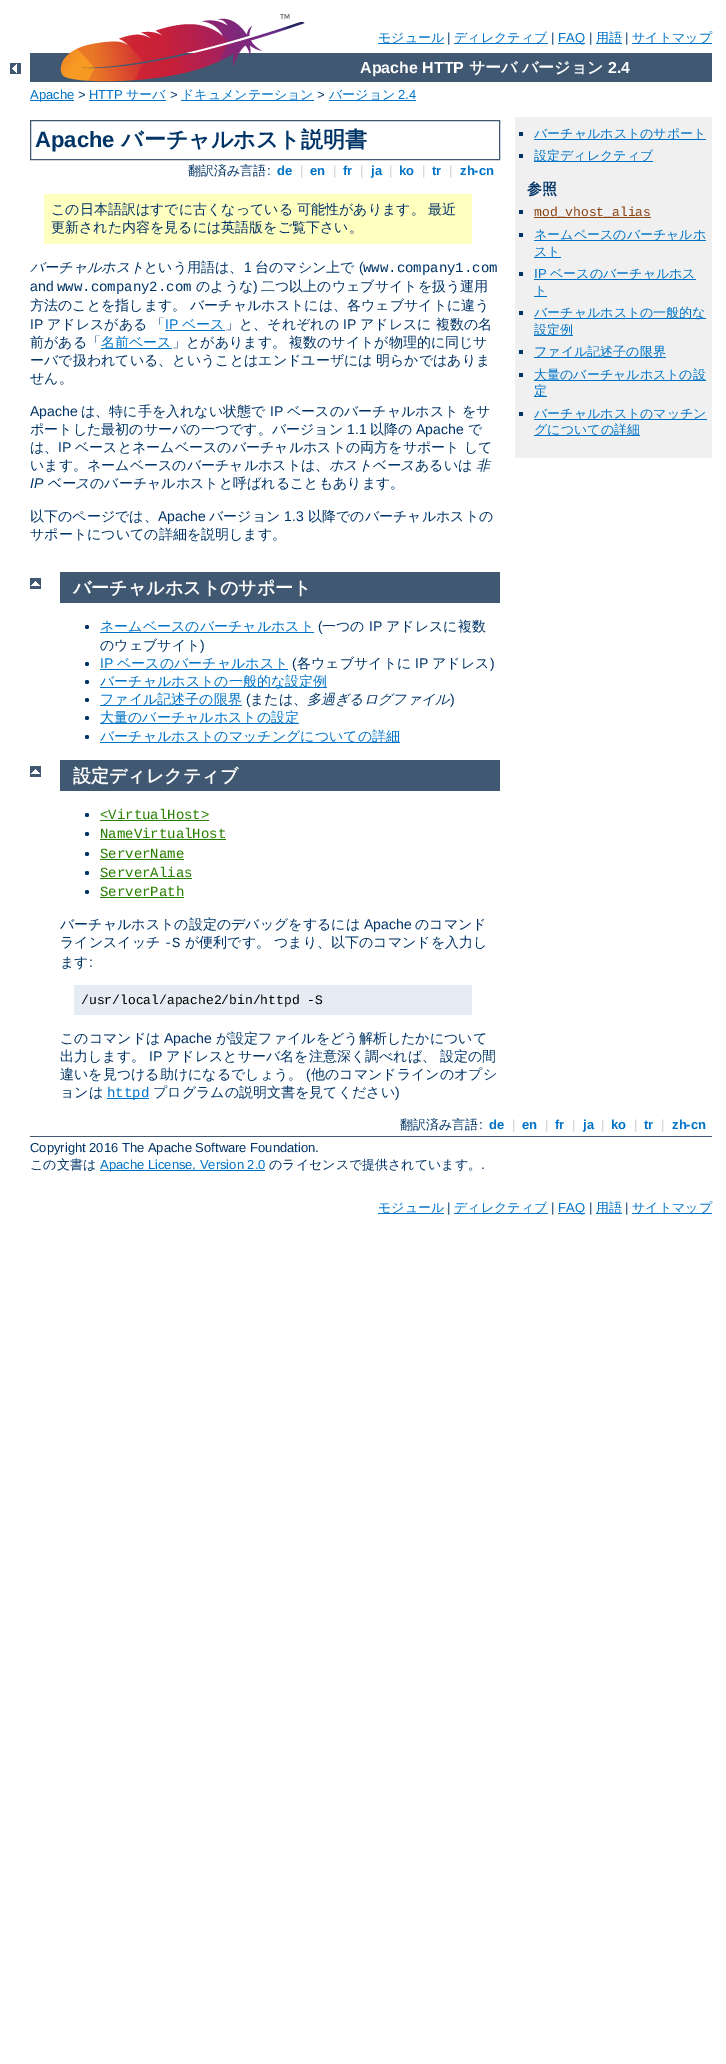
%!PS
<< /PageSize [726 2064] >> setpagedevice
/picture { 5 dict begin { /h /w /y /x /name } { exch def } forall
  gsave x y translate w h scale
  w h 8 [w 0 0 h 0 0] name (r) file false 3 colorimage grestore end } def
0 2064 translate 1 -1 scale
4 setmiterlimit
1 setgray
0 0 726 2064 rectfill
(img1.rgb) 10 63 11 11 picture
0.251 0.345 0.443 setrgbcolor
30 53 682 29 rectfill
(img2.rgb) 60 14 245 68 picture
0 0.451 0.78 setrgbcolor
378 43 66 1 rectfill
/WenQuanYiZenHei-Medium [13 0 0 -13 0 0] selectfont
378 42 moveto (モジュール) show
/LiberationSans-Regular [13 0 0 -13 0 0] selectfont
0 0.2 0.4 setrgbcolor
447 42 moveto (|) show
0 0.451 0.78 setrgbcolor
454 43 94 1 rectfill
/WenQuanYiZenHei-Medium [13 0 0 -13 0 0] selectfont
454 42 moveto (ディレクティブ) show
/LiberationSans-Regular [13 0 0 -13 0 0] selectfont
0 0.2 0.4 setrgbcolor
551 42 moveto (|) show
0 0.451 0.78 setrgbcolor
558 43 27 1 rectfill
558 42 moveto (FAQ) show
0 0.2 0.4 setrgbcolor
589 42 moveto (|) show
0 0.451 0.78 setrgbcolor
596 43 26 1 rectfill
/WenQuanYiZenHei-Medium [13 0 0 -13 0 0] selectfont
596 42 moveto (用語) show
/LiberationSans-Regular [13 0 0 -13 0 0] selectfont
0 0.2 0.4 setrgbcolor
625 42 moveto (|) show
0 0.451 0.78 setrgbcolor
632 43 80 1 rectfill
/WenQuanYiZenHei-Medium [13 0 0 -13 0 0] selectfont
632 42 moveto (サイトマップ) show
/LiberationSans-Bold [16 0 0 -16 0 0] selectfont
1 setgray
360 73 moveto (Apache HTTP) show
/WenQuanYiZenHei-Bold [16 0 0 -16 0 0] selectfont
469 73 moveto (サーバ) show
522 73 moveto (バージョン) show
/LiberationSans-Bold [16 0 0 -16 0 0] selectfont
608 73 moveto (2.4) show
0 0.451 0.78 setrgbcolor
30 100 44 1 rectfill
/LiberationSans-Regular [13 0 0 -13 0 0] selectfont
30 99 moveto (Apache) show
0 0.2 0.4 setrgbcolor
78 99 moveto (>) show
0 0.451 0.78 setrgbcolor
89 99 moveto (HTTP) show
89 100 77 1 rectfill
/WenQuanYiZenHei-Medium [13 0 0 -13 0 0] selectfont
126 99 moveto (サーバ) show
/LiberationSans-Regular [13 0 0 -13 0 0] selectfont
0 0.2 0.4 setrgbcolor
170 99 moveto (>) show
0 0.451 0.78 setrgbcolor
181 100 133 1 rectfill
/WenQuanYiZenHei-Medium [13 0 0 -13 0 0] selectfont
181 99 moveto (ドキュメンテーション) show
/LiberationSans-Regular [13 0 0 -13 0 0] selectfont
0 0.2 0.4 setrgbcolor
317 99 moveto (>) show
0 0.451 0.78 setrgbcolor
329 100 87 1 rectfill
/WenQuanYiZenHei-Medium [13 0 0 -13 0 0] selectfont
329 99 moveto (バージョン) show
/LiberationSans-Regular [13 0 0 -13 0 0] selectfont
398 99 moveto (2.4) show
0.251 0.345 0.443 setrgbcolor
30.5 120.5 469 39 rectstroke
/LiberationSans-Bold [22 0 0 -22 0 0] selectfont
0 0.2 0.4 setrgbcolor
35 147 moveto (Apache) show
/WenQuanYiZenHei-Bold [22 0 0 -22 0 0] selectfont
121 147 moveto (バーチャルホスト説明書) show
/WenQuanYiZenHei-Medium [13 0 0 -13 0 0] selectfont
188 175 moveto (翻訳済み言語) show
/LiberationSans-Regular [13 0 0 -13 0 0] selectfont
267 175 moveto (:) show
/LiberationSans-Bold [13 0 0 -13 0 0] selectfont
0 0.451 0.78 setrgbcolor
277 175 moveto (de) show
/LiberationSans-Regular [13 0 0 -13 0 0] selectfont
0.8 setgray
300 175 moveto (|) show
/LiberationSans-Bold [13 0 0 -13 0 0] selectfont
0 0.451 0.78 setrgbcolor
310 175 moveto (en) show
/LiberationSans-Regular [13 0 0 -13 0 0] selectfont
0.8 setgray
333 175 moveto (|) show
/LiberationSans-Bold [13 0 0 -13 0 0] selectfont
0 0.451 0.78 setrgbcolor
343 175 moveto (fr) show
/LiberationSans-Regular [13 0 0 -13 0 0] selectfont
0.8 setgray
360 175 moveto (|) show
/LiberationSans-Bold [13 0 0 -13 0 0] selectfont
0 0.451 0.78 setrgbcolor
371 175 moveto (ja) show
/LiberationSans-Regular [13 0 0 -13 0 0] selectfont
0.8 setgray
389 175 moveto (|) show
/LiberationSans-Bold [13 0 0 -13 0 0] selectfont
0 0.451 0.78 setrgbcolor
399 175 moveto (ko) show
/LiberationSans-Regular [13 0 0 -13 0 0] selectfont
0.8 setgray
422 175 moveto (|) show
/LiberationSans-Bold [13 0 0 -13 0 0] selectfont
0 0.451 0.78 setrgbcolor
432 175 moveto (tr) show
/LiberationSans-Regular [13 0 0 -13 0 0] selectfont
0.8 setgray
449 175 moveto (|) show
/LiberationSans-Bold [13 0 0 -13 0 0] selectfont
0 0.451 0.78 setrgbcolor
460 175 moveto (zh-cn) show
1 1 0.753 setrgbcolor
44 194 428 50 rectfill
/WenQuanYiZenHei-Medium [14 0 0 -14 0 0] selectfont
0 0.2 0.4 setrgbcolor
51 214 moveto (この日本語訳はすでに古くなっている) show
297 214 moveto (可能性があります。) show
428 214 moveto (最近) show
51 232 moveto (更新された内容を見るには英語版をご覧下さい。) show
/WenQuanYiZenHei-MediumItalic [14 0 0 -14 0 0] selectfont
30 272 moveto (バーチャルホスト) show
/WenQuanYiZenHei-Medium [14 0 0 -14 0 0] selectfont
144 272 moveto (という用語は、) show
/LiberationSans-Regular [14 0 0 -14 0 0] selectfont
244 272 moveto (1) show
/WenQuanYiZenHei-Medium [14 0 0 -14 0 0] selectfont
255 272 moveto (台のマシン上で) show
/LiberationSans-Regular [14 0 0 -14 0 0] selectfont
359 272 moveto (\() show
/LiberationMono-Regular [14 0 0 -14 0 0] selectfont
363 272 moveto (www.company1.com) show
/LiberationSans-Regular [14 0 0 -14 0 0] selectfont
30 291 moveto (and) show
/LiberationMono-Regular [14 0 0 -14 0 0] selectfont
57 291 moveto (www.company2.com) show
/WenQuanYiZenHei-Medium [14 0 0 -14 0 0] selectfont
196 291 moveto (のような) show
/LiberationSans-Regular [14 0 0 -14 0 0] selectfont
253 291 moveto (\)) show
/WenQuanYiZenHei-Medium [14 0 0 -14 0 0] selectfont
261 291 moveto (二つ以上のウェブサイトを扱う運用) show
30 310 moveto (方法のことを指します。) show
190 310 moveto (バーチャルホストには、各ウェブサイトに違う) show
/LiberationSans-Regular [14 0 0 -14 0 0] selectfont
30 329 moveto (IP) show
/WenQuanYiZenHei-Medium [14 0 0 -14 0 0] selectfont
47 329 moveto (アドレスがある) show
151 329 moveto (「) show
/LiberationSans-Regular [14 0 0 -14 0 0] selectfont
0 0.451 0.78 setrgbcolor
165 329 moveto (IP) show
165 330 60 1 rectfill
/WenQuanYiZenHei-Medium [14 0 0 -14 0 0] selectfont
182 329 moveto (ベース) show
0 0.2 0.4 setrgbcolor
225 329 moveto (」と、それぞれの) show
/LiberationSans-Regular [14 0 0 -14 0 0] selectfont
343 329 moveto (IP) show
/WenQuanYiZenHei-Medium [14 0 0 -14 0 0] selectfont
360 329 moveto (アドレスに) show
436 329 moveto (複数の名) show
30 347 moveto (前がある「) show
0 0.451 0.78 setrgbcolor
101 348 71 1 rectfill
101 347 moveto (名前ベース) show
0 0.2 0.4 setrgbcolor
172 347 moveto (」とがあります。) show
289 347 moveto (複数のサイトが物理的に同じサ) show
30 365 moveto (ーバで扱われている、ということはエンドユーザには) show
376 365 moveto (明らかではありま) show
30 383 moveto (せん。) show
/LiberationSans-Regular [14 0 0 -14 0 0] selectfont
30 416 moveto (Apache) show
/WenQuanYiZenHei-Medium [14 0 0 -14 0 0] selectfont
81 416 moveto (は、特に手を入れない状態で) show
/LiberationSans-Regular [14 0 0 -14 0 0] selectfont
270 416 moveto (IP) show
/WenQuanYiZenHei-Medium [14 0 0 -14 0 0] selectfont
287 416 moveto (ベースのバーチャルホスト) show
462 416 moveto (をサ) show
30 434 moveto (ポートした最初のサーバの一つです。バージョン) show
/LiberationSans-Regular [14 0 0 -14 0 0] selectfont
347 434 moveto (1.1) show
/WenQuanYiZenHei-Medium [14 0 0 -14 0 0] selectfont
370 434 moveto (以降の) show
/LiberationSans-Regular [14 0 0 -14 0 0] selectfont
416 434 moveto (Apache) show
/WenQuanYiZenHei-Medium [14 0 0 -14 0 0] selectfont
468 434 moveto (で) show
30 452 moveto (は、) show
/LiberationSans-Regular [14 0 0 -14 0 0] selectfont
58 452 moveto (IP) show
/WenQuanYiZenHei-Medium [14 0 0 -14 0 0] selectfont
75 452 moveto (ベースとネームベースのバーチャルホストの両方をサポート) show
464 452 moveto (して) show
30 470 moveto (います。ネームベースのバーチャルホストは、) show
/WenQuanYiZenHei-MediumItalic [14 0 0 -14 0 0] selectfont
329 470 moveto (ホストベース) show
/WenQuanYiZenHei-Medium [14 0 0 -14 0 0] selectfont
415 470 moveto (あるいは) show
/WenQuanYiZenHei-MediumItalic [14 0 0 -14 0 0] selectfont
476 470 moveto (非) show
/LiberationSans-Italic [14 0 0 -14 0 0] selectfont
30 488 moveto (IP) show
/WenQuanYiZenHei-MediumItalic [14 0 0 -14 0 0] selectfont
47 488 moveto (ベース) show
/WenQuanYiZenHei-Medium [14 0 0 -14 0 0] selectfont
90 488 moveto (のバーチャルホストと呼ばれることもあります。) show
30 521 moveto (以下のページでは、) show
/LiberationSans-Regular [14 0 0 -14 0 0] selectfont
158 521 moveto (Apache) show
/WenQuanYiZenHei-Medium [14 0 0 -14 0 0] selectfont
209 521 moveto (バージョン) show
/LiberationSans-Regular [14 0 0 -14 0 0] selectfont
284 521 moveto (1.3) show
/WenQuanYiZenHei-Medium [14 0 0 -14 0 0] selectfont
308 521 moveto (以降でのバーチャルホストの) show
30 539 moveto (サポートについての詳細を説明します。) show
0.941 setgray
515 117 197 341 rectfill
0 0.2 0.4 setrgbcolor
519 132 4 4 rectfill
0 0.451 0.78 setrgbcolor
534 139 172 1 rectfill
/WenQuanYiZenHei-Medium [13 0 0 -13 0 0] selectfont
534 138 moveto (バーチャルホストのサポート) show
0 0.2 0.4 setrgbcolor
519 154 4 4 rectfill
0 0.451 0.78 setrgbcolor
534 161 119 1 rectfill
534 160 moveto (設定ディレクティブ) show
/WenQuanYiZenHei-Bold [15 0 0 -15 0 0] selectfont
0 0.2 0.4 setrgbcolor
527 194 moveto (参照) show
519 210 4 4 rectfill
0.545 0.271 0.075 setrgbcolor
534 217 117 1 rectfill
/LiberationMono-Regular [13 0 0 -13 0 0] selectfont
534 216 moveto (mod_vhost_alias) show
0 0.2 0.4 setrgbcolor
519 233 4 4 rectfill
0 0.451 0.78 setrgbcolor
534 240 172 1 rectfill
/WenQuanYiZenHei-Medium [13 0 0 -13 0 0] selectfont
534 239 moveto (ネームベースのバーチャルホ) show
534 257 27 1 rectfill
534 256 moveto (スト) show
0 0.2 0.4 setrgbcolor
519 272 4 4 rectfill
/LiberationSans-Regular [13 0 0 -13 0 0] selectfont
0 0.451 0.78 setrgbcolor
534 278 moveto (IP) show
534 279 162 1 rectfill
/WenQuanYiZenHei-Medium [13 0 0 -13 0 0] selectfont
550 278 moveto (ベースのバーチャルホス) show
534 296 13 1 rectfill
534 295 moveto (ト) show
0 0.2 0.4 setrgbcolor
519 311 4 4 rectfill
0 0.451 0.78 setrgbcolor
534 318 172 1 rectfill
534 317 moveto (バーチャルホストの一般的な) show
534 335 39 1 rectfill
534 334 moveto (設定例) show
0 0.2 0.4 setrgbcolor
519 350 4 4 rectfill
0 0.451 0.78 setrgbcolor
534 357 132 1 rectfill
534 356 moveto (ファイル記述子の限界) show
0 0.2 0.4 setrgbcolor
519 373 4 4 rectfill
0 0.451 0.78 setrgbcolor
534 380 172 1 rectfill
534 379 moveto (大量のバーチャルホストの設) show
534 396 13 1 rectfill
534 395 moveto (定) show
0 0.2 0.4 setrgbcolor
519 412 4 4 rectfill
0 0.451 0.78 setrgbcolor
534 419 173 1 rectfill
534 418 moveto (バーチャルホストのマッチン) show
534 435 106 1 rectfill
534 434 moveto (グについての詳細) show
(img3.rgb) 30 578 11 11 picture
0.251 0.345 0.443 setrgbcolor
60 572 440 31 rectfill
/WenQuanYiZenHei-Bold [18 0 0 -18 0 0] selectfont
1 setgray
73 594 moveto (バーチャルホストのサポート) show
0 0.2 0.4 setrgbcolor
newpath 87 627 2 0 360 arc closepath fill
0 0.451 0.78 setrgbcolor
100 632 214 1 rectfill
/WenQuanYiZenHei-Medium [14 0 0 -14 0 0] selectfont
100 631 moveto (ネームベースのバーチャルホスト) show
/LiberationSans-Regular [14 0 0 -14 0 0] selectfont
0 0.2 0.4 setrgbcolor
318 631 moveto (\() show
/WenQuanYiZenHei-Medium [14 0 0 -14 0 0] selectfont
322 631 moveto (一つの) show
/LiberationSans-Regular [14 0 0 -14 0 0] selectfont
369 631 moveto (IP) show
/WenQuanYiZenHei-Medium [14 0 0 -14 0 0] selectfont
386 631 moveto (アドレスに複数) show
100 650 moveto (のウェブサイト) show
/LiberationSans-Regular [14 0 0 -14 0 0] selectfont
200 650 moveto (\)) show
newpath 87 664 2 0 360 arc closepath fill
0 0.451 0.78 setrgbcolor
100 668 moveto (IP) show
100 669 188 1 rectfill
/WenQuanYiZenHei-Medium [14 0 0 -14 0 0] selectfont
117 668 moveto (ベースのバーチャルホスト) show
/LiberationSans-Regular [14 0 0 -14 0 0] selectfont
0 0.2 0.4 setrgbcolor
292 668 moveto (\() show
/WenQuanYiZenHei-Medium [14 0 0 -14 0 0] selectfont
297 668 moveto (各ウェブサイトに) show
/LiberationSans-Regular [14 0 0 -14 0 0] selectfont
415 668 moveto (IP) show
/WenQuanYiZenHei-Medium [14 0 0 -14 0 0] selectfont
432 668 moveto (アドレス) show
/LiberationSans-Regular [14 0 0 -14 0 0] selectfont
490 668 moveto (\)) show
newpath 87 682 2 0 360 arc closepath fill
0 0.451 0.78 setrgbcolor
100 687 227 1 rectfill
/WenQuanYiZenHei-Medium [14 0 0 -14 0 0] selectfont
100 686 moveto (バーチャルホストの一般的な設定例) show
0 0.2 0.4 setrgbcolor
newpath 87 700 2 0 360 arc closepath fill
0 0.451 0.78 setrgbcolor
100 705 142 1 rectfill
100 704 moveto (ファイル記述子の限界) show
/LiberationSans-Regular [14 0 0 -14 0 0] selectfont
0 0.2 0.4 setrgbcolor
246 704 moveto (\() show
/WenQuanYiZenHei-Medium [14 0 0 -14 0 0] selectfont
250 704 moveto (または、) show
/WenQuanYiZenHei-MediumItalic [14 0 0 -14 0 0] selectfont
307 704 moveto (多過ぎるログファイル) show
/LiberationSans-Regular [14 0 0 -14 0 0] selectfont
450 704 moveto (\)) show
newpath 87 718 2 0 360 arc closepath fill
0 0.451 0.78 setrgbcolor
100 723 199 1 rectfill
/WenQuanYiZenHei-Medium [14 0 0 -14 0 0] selectfont
100 722 moveto (大量のバーチャルホストの設定) show
0 0.2 0.4 setrgbcolor
newpath 87 737 2 0 360 arc closepath fill
0 0.451 0.78 setrgbcolor
100 742 300 1 rectfill
100 741 moveto (バーチャルホストのマッチングについての詳細) show
(img3.rgb) 30 766 11 11 picture
0.251 0.345 0.443 setrgbcolor
60 760 440 31 rectfill
/WenQuanYiZenHei-Bold [18 0 0 -18 0 0] selectfont
1 setgray
73 782 moveto (設定ディレクティブ) show
0 0.2 0.4 setrgbcolor
newpath 87 815 2 0 360 arc closepath fill
/LiberationMono-Regular [14 0 0 -14 0 0] selectfont
0.157 0.498 0 setrgbcolor
100 819 moveto (<VirtualHost>) show
100 820 109 1 rectfill
0 0.2 0.4 setrgbcolor
newpath 87 834 2 0 360 arc closepath fill
0.157 0.498 0 setrgbcolor
100 838 moveto (NameVirtualHost) show
100 839 126 1 rectfill
0 0.2 0.4 setrgbcolor
newpath 87 854 2 0 360 arc closepath fill
0.157 0.498 0 setrgbcolor
100 858 moveto (ServerName) show
100 859 84 1 rectfill
0 0.2 0.4 setrgbcolor
newpath 87 873 2 0 360 arc closepath fill
0.157 0.498 0 setrgbcolor
100 877 moveto (ServerAlias) show
100 878 92 1 rectfill
0 0.2 0.4 setrgbcolor
newpath 87 892 2 0 360 arc closepath fill
0.157 0.498 0 setrgbcolor
100 896 moveto (ServerPath) show
100 897 84 1 rectfill
/WenQuanYiZenHei-Medium [14 0 0 -14 0 0] selectfont
0 0.2 0.4 setrgbcolor
60 929 moveto (バーチャルホストの設定のデバッグをするには) show
/LiberationSans-Regular [14 0 0 -14 0 0] selectfont
364 929 moveto (Apache) show
/WenQuanYiZenHei-Medium [14 0 0 -14 0 0] selectfont
415 929 moveto (のコマンド) show
60 947 moveto (ラインスイッチ) show
/LiberationMono-Regular [14 0 0 -14 0 0] selectfont
164 947 moveto (-S) show
/WenQuanYiZenHei-Medium [14 0 0 -14 0 0] selectfont
185 947 moveto (が便利です。) show
274 947 moveto (つまり、以下のコマンドを入力し) show
60 967 moveto (ます) show
/LiberationSans-Regular [14 0 0 -14 0 0] selectfont
89 967 moveto (:) show
0.898 0.925 0.953 setrgbcolor
74 985 398 30 rectfill
/LiberationMono-Regular [13 0 0 -13 0 0] selectfont
0 setgray
81 1004 moveto (/usr/local/apache2/bin/httpd -S) show
/WenQuanYiZenHei-Medium [14 0 0 -14 0 0] selectfont
0 0.2 0.4 setrgbcolor
60 1043 moveto (このコマンドは) show
/LiberationSans-Regular [14 0 0 -14 0 0] selectfont
164 1043 moveto (Apache) show
/WenQuanYiZenHei-Medium [14 0 0 -14 0 0] selectfont
216 1043 moveto (が設定ファイルをどう解析したかについて) show
60 1061 moveto (出力します。) show
/LiberationSans-Regular [14 0 0 -14 0 0] selectfont
149 1061 moveto (IP) show
/WenQuanYiZenHei-Medium [14 0 0 -14 0 0] selectfont
166 1061 moveto (アドレスとサーバ名を注意深く調べれば、 設定の間) show
60 1079 moveto (違いを見つける助けになるでしょう。) show
/LiberationSans-Regular [14 0 0 -14 0 0] selectfont
306 1079 moveto (\() show
/WenQuanYiZenHei-Medium [14 0 0 -14 0 0] selectfont
311 1079 moveto (他のコマンドラインのオプシ) show
60 1097 moveto (ョンは) show
0 0.451 0.78 setrgbcolor
107 1098 42 1 rectfill
/LiberationMono-Regular [14 0 0 -14 0 0] selectfont
107 1097 moveto (httpd) show
/WenQuanYiZenHei-Medium [14 0 0 -14 0 0] selectfont
0 0.2 0.4 setrgbcolor
153 1097 moveto (プログラムの説明文書を見てください) show
/LiberationSans-Regular [14 0 0 -14 0 0] selectfont
395 1097 moveto (\)) show
/WenQuanYiZenHei-Medium [13 0 0 -13 0 0] selectfont
400 1129 moveto (翻訳済み言語) show
/LiberationSans-Regular [13 0 0 -13 0 0] selectfont
479 1129 moveto (:) show
/LiberationSans-Bold [13 0 0 -13 0 0] selectfont
0 0.451 0.78 setrgbcolor
489 1129 moveto (de) show
/LiberationSans-Regular [13 0 0 -13 0 0] selectfont
0.8 setgray
512 1129 moveto (|) show
/LiberationSans-Bold [13 0 0 -13 0 0] selectfont
0 0.451 0.78 setrgbcolor
522 1129 moveto (en) show
/LiberationSans-Regular [13 0 0 -13 0 0] selectfont
0.8 setgray
545 1129 moveto (|) show
/LiberationSans-Bold [13 0 0 -13 0 0] selectfont
0 0.451 0.78 setrgbcolor
555 1129 moveto (fr) show
/LiberationSans-Regular [13 0 0 -13 0 0] selectfont
0.8 setgray
572 1129 moveto (|) show
/LiberationSans-Bold [13 0 0 -13 0 0] selectfont
0 0.451 0.78 setrgbcolor
583 1129 moveto (ja) show
/LiberationSans-Regular [13 0 0 -13 0 0] selectfont
0.8 setgray
601 1129 moveto (|) show
/LiberationSans-Bold [13 0 0 -13 0 0] selectfont
0 0.451 0.78 setrgbcolor
611 1129 moveto (ko) show
/LiberationSans-Regular [13 0 0 -13 0 0] selectfont
0.8 setgray
634 1129 moveto (|) show
/LiberationSans-Bold [13 0 0 -13 0 0] selectfont
0 0.451 0.78 setrgbcolor
644 1129 moveto (tr) show
/LiberationSans-Regular [13 0 0 -13 0 0] selectfont
0.8 setgray
661 1129 moveto (|) show
/LiberationSans-Bold [13 0 0 -13 0 0] selectfont
0 0.451 0.78 setrgbcolor
672 1129 moveto (zh-cn) show
0.251 0.345 0.443 setrgbcolor
30 1136 682 1 rectfill
/LiberationSans-Regular [13 0 0 -13 0 0] selectfont
0 0.2 0.4 setrgbcolor
30 1152 moveto (Copyright 2016 The Apache Software Foundation.) show
/WenQuanYiZenHei-Medium [13 0 0 -13 0 0] selectfont
30 1169 moveto (この文書は) show
0 0.451 0.78 setrgbcolor
100 1170 165 1 rectfill
/LiberationSans-Regular [13 0 0 -13 0 0] selectfont
100 1169 moveto (Apache License, Version 2.0) show
/WenQuanYiZenHei-Medium [13 0 0 -13 0 0] selectfont
0 0.2 0.4 setrgbcolor
269 1169 moveto (のライセンスで提供されています。) show
/LiberationSans-Regular [13 0 0 -13 0 0] selectfont
481 1169 moveto (.) show
0 0.451 0.78 setrgbcolor
378 1213 66 1 rectfill
/WenQuanYiZenHei-Medium [13 0 0 -13 0 0] selectfont
378 1212 moveto (モジュール) show
/LiberationSans-Regular [13 0 0 -13 0 0] selectfont
0 0.2 0.4 setrgbcolor
447 1212 moveto (|) show
0 0.451 0.78 setrgbcolor
454 1213 94 1 rectfill
/WenQuanYiZenHei-Medium [13 0 0 -13 0 0] selectfont
454 1212 moveto (ディレクティブ) show
/LiberationSans-Regular [13 0 0 -13 0 0] selectfont
0 0.2 0.4 setrgbcolor
551 1212 moveto (|) show
0 0.451 0.78 setrgbcolor
558 1213 27 1 rectfill
558 1212 moveto (FAQ) show
0 0.2 0.4 setrgbcolor
589 1212 moveto (|) show
0 0.451 0.78 setrgbcolor
596 1213 26 1 rectfill
/WenQuanYiZenHei-Medium [13 0 0 -13 0 0] selectfont
596 1212 moveto (用語) show
/LiberationSans-Regular [13 0 0 -13 0 0] selectfont
0 0.2 0.4 setrgbcolor
625 1212 moveto (|) show
0 0.451 0.78 setrgbcolor
632 1213 80 1 rectfill
/WenQuanYiZenHei-Medium [13 0 0 -13 0 0] selectfont
632 1212 moveto (サイトマップ) show
showpage
